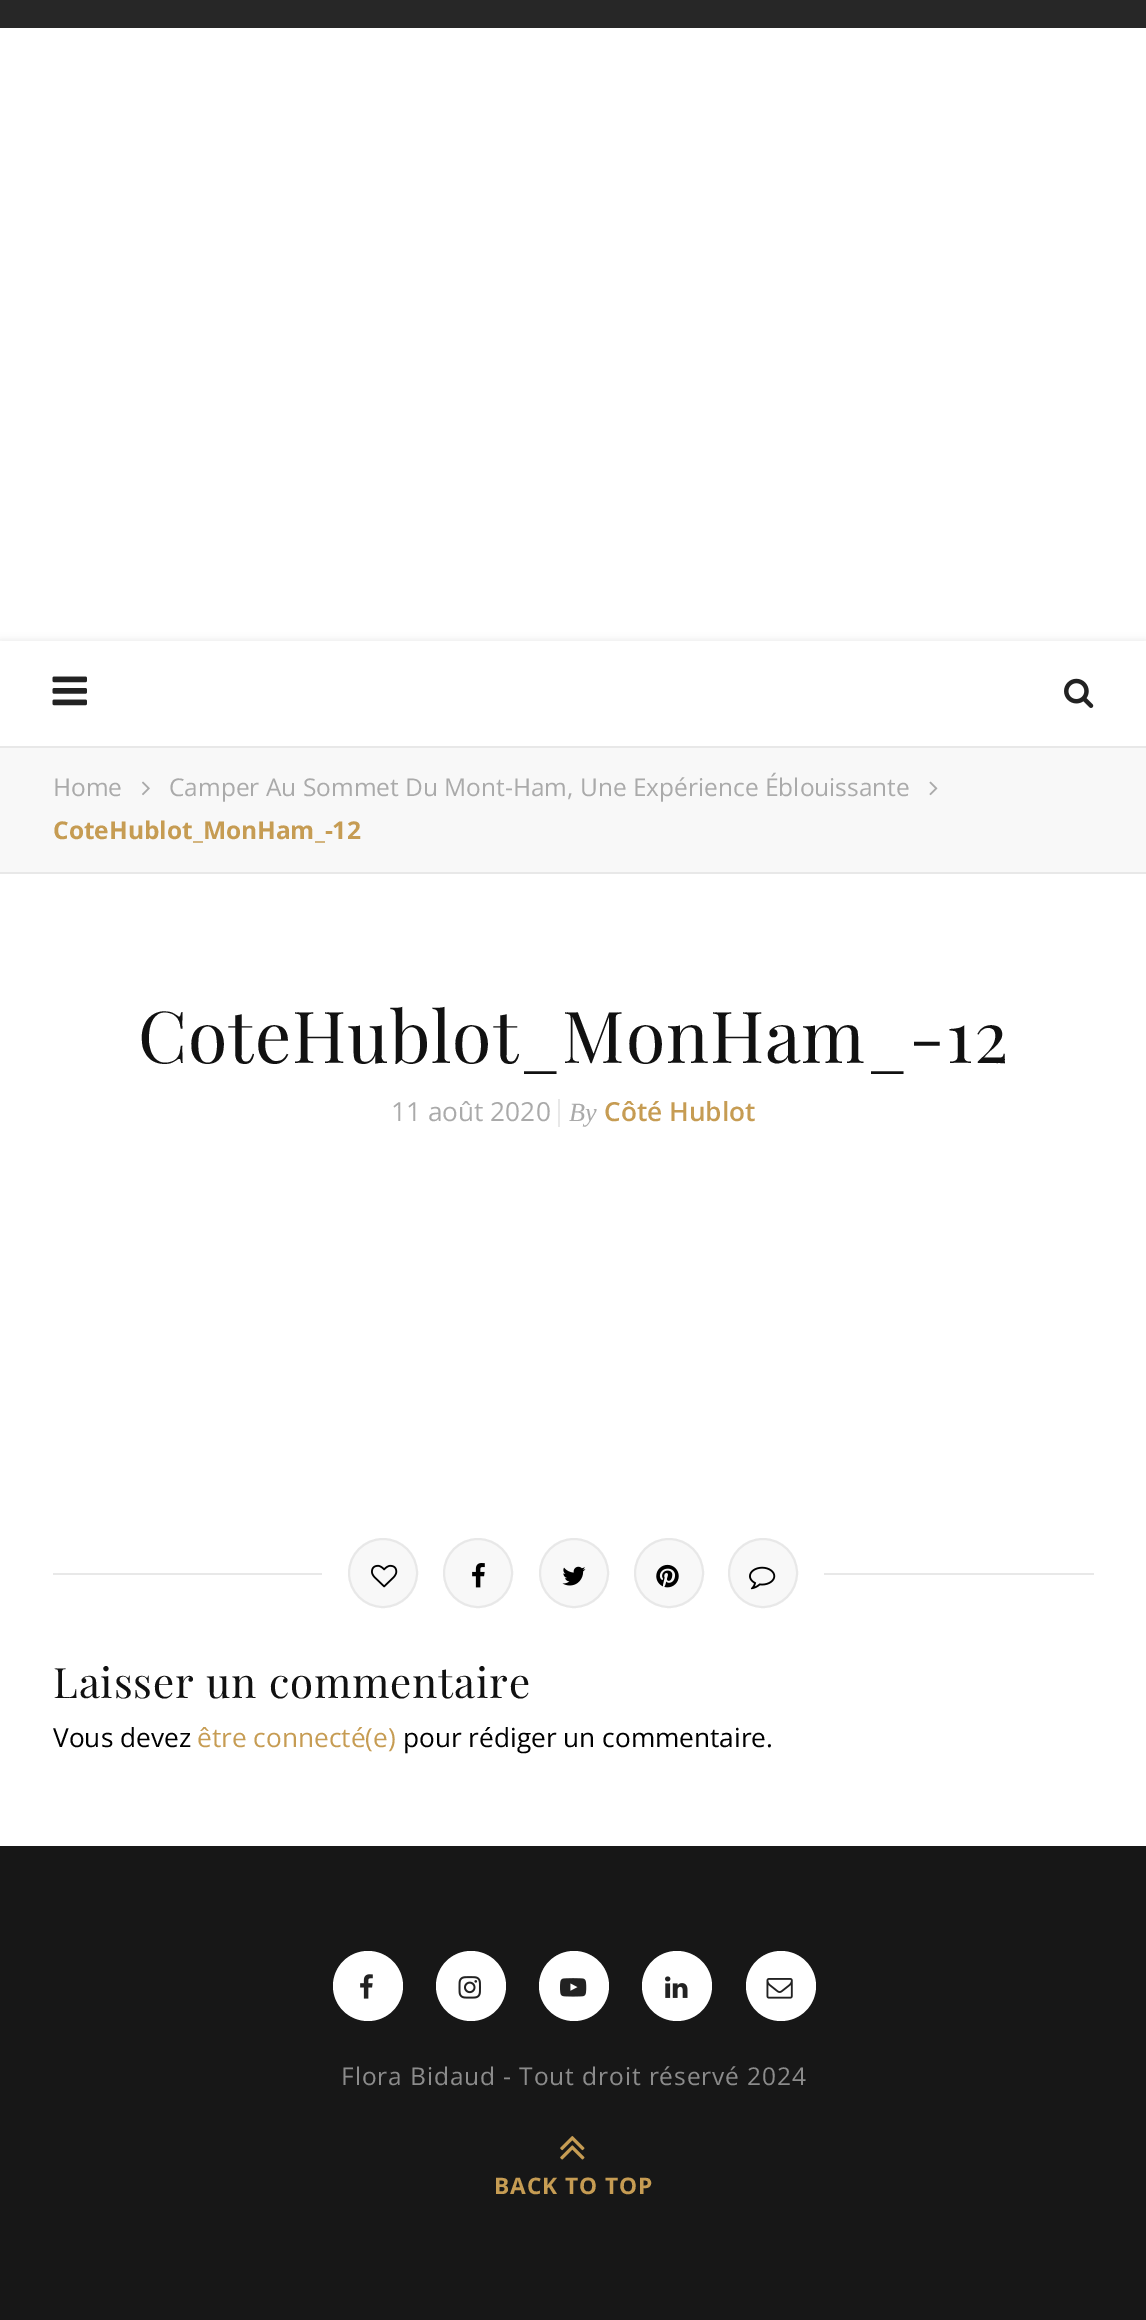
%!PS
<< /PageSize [1146 2320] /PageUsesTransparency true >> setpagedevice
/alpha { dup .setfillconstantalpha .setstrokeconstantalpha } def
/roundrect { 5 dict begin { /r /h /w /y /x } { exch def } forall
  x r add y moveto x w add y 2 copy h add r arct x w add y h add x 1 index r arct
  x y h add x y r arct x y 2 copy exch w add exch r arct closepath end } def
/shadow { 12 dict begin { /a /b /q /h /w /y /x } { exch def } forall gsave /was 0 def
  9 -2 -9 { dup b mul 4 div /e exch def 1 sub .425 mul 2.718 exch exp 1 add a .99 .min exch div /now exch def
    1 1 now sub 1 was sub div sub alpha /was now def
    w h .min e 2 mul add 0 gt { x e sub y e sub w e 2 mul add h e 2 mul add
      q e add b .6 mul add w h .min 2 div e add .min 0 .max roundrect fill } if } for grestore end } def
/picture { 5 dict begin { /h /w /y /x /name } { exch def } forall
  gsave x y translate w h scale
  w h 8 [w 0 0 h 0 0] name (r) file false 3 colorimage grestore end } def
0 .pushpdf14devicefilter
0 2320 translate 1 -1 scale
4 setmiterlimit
1 setgray
0 0 1146 2320 rectfill
0.153 setgray
0 0 1146 28 rectfill
0.725 setgray
0 642 1146 105 0 4.5 0.5 shadow
1 setgray
0 641 1146 105 rectfill
(img1.rgb) 52 676 35 30 picture
(img2.rgb) 1064 678 30 30 picture
0.973 setgray
0 748 1146 124 rectfill
0.91 setgray
0 746 1146 2 rectfill
0 872 1146 2 rectfill
/OpenSans-Regular [24.5 0 0 -24.5 0 0] selectfont
0.667 setgray
53 796 moveto (Home) show
(img3.rgb) 142 781 8 15 picture
169 796 moveto (Camper Au Sommet Du Mont-Ham, Une Expérience Éblouissante) show
(img4.rgb) 929 781 9 15 picture
/OpenSans-Bold [24.5 0 0 -24.5 0 0] selectfont
0.776 0.612 0.325 setrgbcolor
53 839 moveto (CoteHublot_MonHam_-12) show
/PlayfairDisplay-Regular [71.75 0 0 -71.75 0 0] selectfont
0.067 setgray
138 1063 moveto 0.9 0 (CoteHublot_MonHam_-12) ashow
/OpenSans-Regular [26.25 0 0 -26.25 0 0] selectfont
0.667 setgray
391 1121 moveto (11 août 2020) show
/LiberationSerif-Italic [26.25 0 0 -26.25 0 0] selectfont
569 1121 moveto (By) show
0.91 setgray
558 1099 2 28 rectfill
/OpenSans-SemiBold [26.25 0 0 -26.25 0 0] selectfont
0.776 0.612 0.325 setrgbcolor
604 1121 moveto (Côté Hublot) show
0.91 setgray
53 1573 269 2 rectfill
0.973 setgray
newpath 383 1573 34 0 360 arc closepath gsave fill grestore
0.91 setgray
2 setlinewidth
stroke
(img5.rgb) 371 1564 27 24 picture
0.973 setgray
newpath 478 1573 34 0 360 arc closepath gsave fill grestore
0.91 setgray
stroke
(img6.rgb) 472 1563 13 25 picture
0.973 setgray
newpath 574 1573 34 0 360 arc closepath gsave fill grestore
0.91 setgray
stroke
(img7.rgb) 562 1566 24 20 picture
0.973 setgray
newpath 669 1573 34 0 360 arc closepath gsave fill grestore
0.91 setgray
stroke
(img8.rgb) 656 1564 23 24 picture
0.973 setgray
newpath 763 1573 34 0 360 arc closepath gsave fill grestore
0.91 setgray
stroke
(img9.rgb) 749 1566 27 24 picture
824 1573 270 2 rectfill
/PlayfairDisplay-Regular [42 0 0 -42 0 0] selectfont
0.067 setgray
53 1698 moveto 0.9 0 (Laisser un commentaire) ashow
/OpenSans-Regular [26.25 0 0 -26.25 0 0] selectfont
0 setgray
53 1747 moveto (Vous devez) show
0.776 0.612 0.325 setrgbcolor
197 1747 moveto (être connecté\(e\)) show
0 setgray
403 1747 moveto (pour rédiger un commentaire.) show
0.09 setgray
0 1846 1146 474 rectfill
1 setgray
newpath 368 1986 35 0 360 arc closepath fill
(img10.rgb) 360 1974 13 25 picture
newpath 471 1986 35 0 360 arc closepath fill
(img11.rgb) 458 1976 23 23 picture
newpath 574 1986 35 0 360 arc closepath fill
(img12.rgb) 560 1978 27 19 picture
newpath 677 1986 35 0 360 arc closepath fill
(img13.rgb) 665 1976 23 22 picture
newpath 781 1986 35 0 360 arc closepath fill
(img14.rgb) 766 1978 27 21 picture
/OpenSans-Regular [24.5 0 0 -24.5 0 0] selectfont
0.549 setgray
341 2085 moveto 0.9 0 (Flora Bidaud - Tout droit réservé 2024) ashow
(img15.rgb) 560 2136 25 24 picture
/OpenSans-Bold [22.75 0 0 -22.75 0 0] selectfont
0.776 0.612 0.325 setrgbcolor
494 2194 moveto 0.9 0 (BACK TO TOP) ashow
.poppdf14devicefilter showpage
